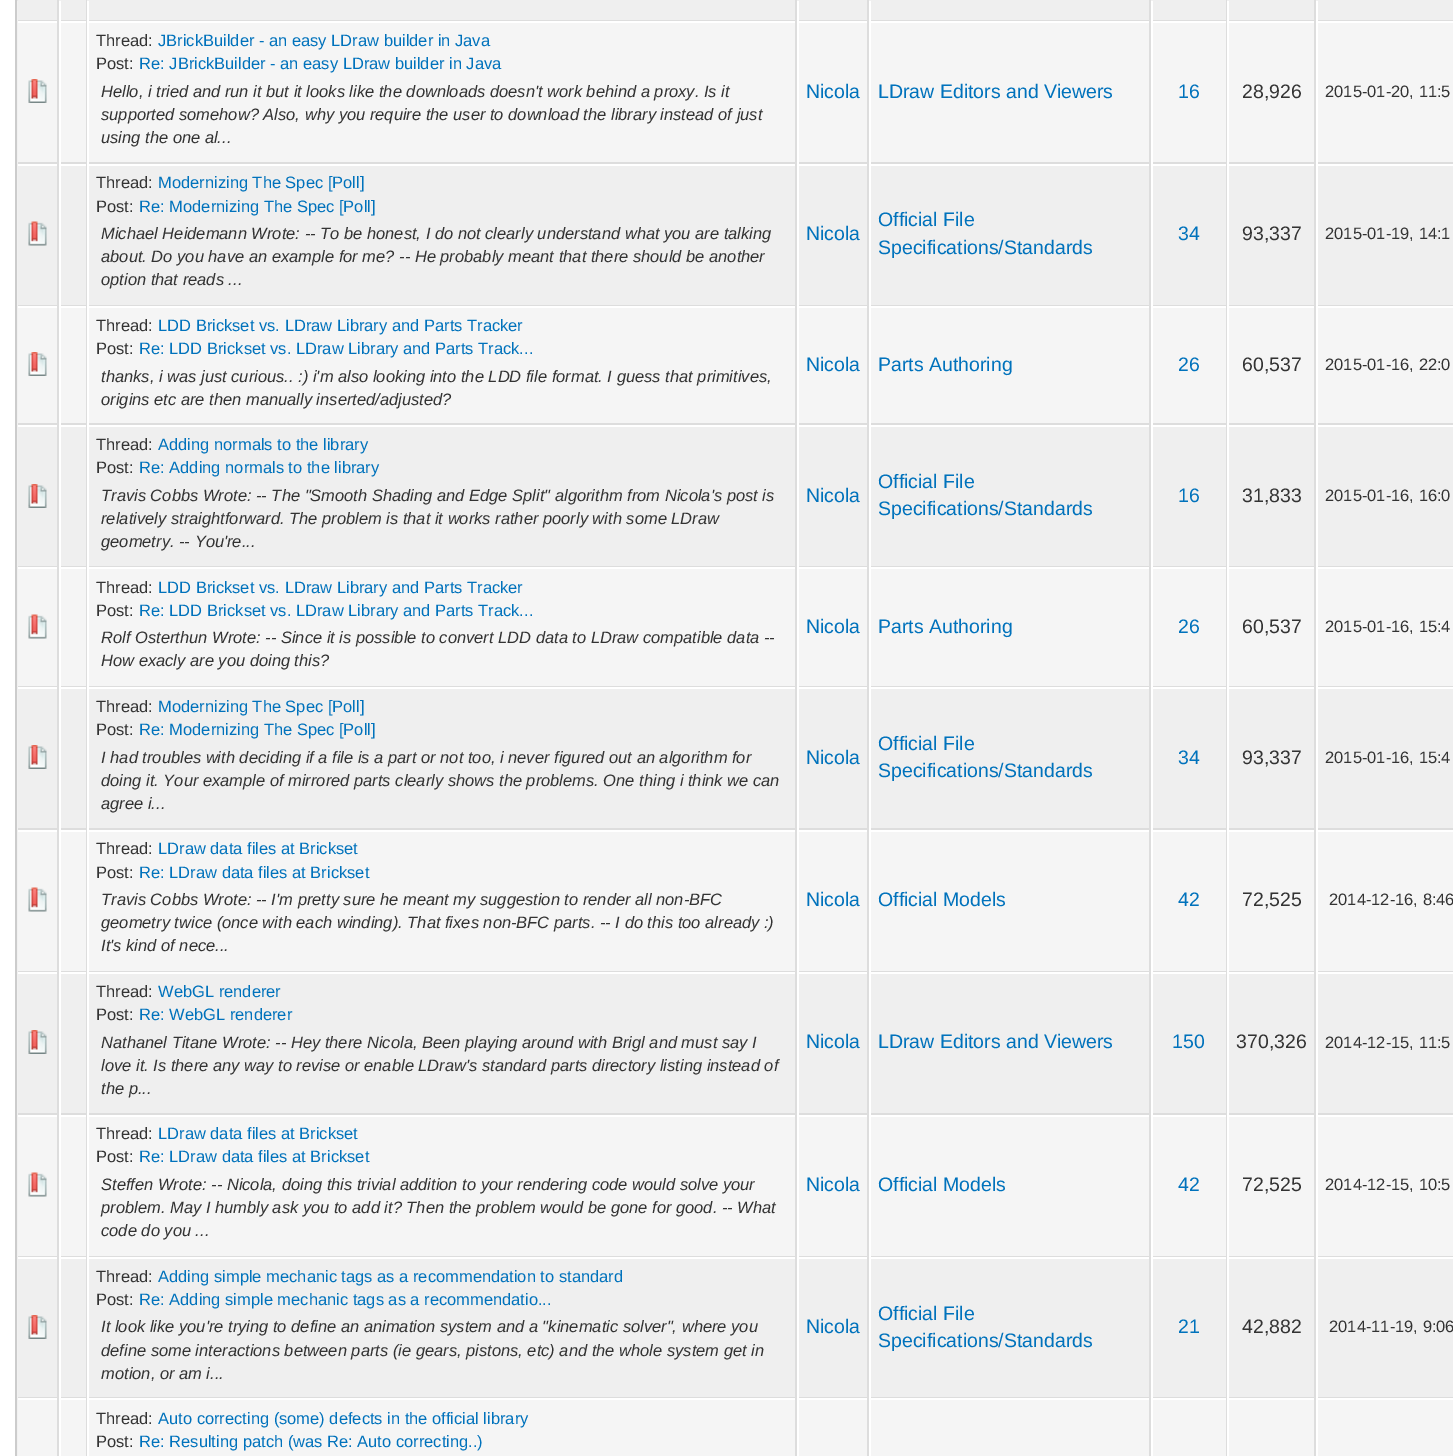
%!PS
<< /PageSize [1453 1456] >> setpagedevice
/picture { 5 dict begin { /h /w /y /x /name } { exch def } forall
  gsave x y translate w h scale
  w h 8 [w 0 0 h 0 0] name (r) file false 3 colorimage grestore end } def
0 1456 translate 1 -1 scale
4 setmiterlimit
1 setgray
0 0 1453 1456 rectfill
0.8 setgray
2 setlinewidth
16 -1 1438 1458 rectstroke
0.937 setgray
18 0 39 20 rectfill
0.867 setgray
57 0 2 1456 rectfill
18 20 41 1 rectfill
0.937 setgray
61 0 25 20 rectfill
0.867 setgray
86 0 1 1456 rectfill
59 20 28 1 rectfill
1 setgray
59 20 2 1 rectfill
0.937 setgray
89 0 706 20 rectfill
0.867 setgray
795 0 2 1456 rectfill
87 20 710 1 rectfill
1 setgray
87 20 2 1 rectfill
0.937 setgray
799 0 68 20 rectfill
0.867 setgray
867 0 2 1456 rectfill
797 20 72 1 rectfill
1 setgray
797 20 2 1 rectfill
0.937 setgray
871 0 278 20 rectfill
0.867 setgray
1149 0 2 1456 rectfill
869 20 282 1 rectfill
1 setgray
869 20 2 1 rectfill
0.937 setgray
1153 0 73 20 rectfill
0.867 setgray
1226 0 1 1456 rectfill
1151 20 76 1 rectfill
1 setgray
1151 20 2 1 rectfill
0.937 setgray
1229 0 85 20 rectfill
0.867 setgray
1314 0 2 1456 rectfill
1227 20 226 1 rectfill
1 setgray
1227 20 2 1 rectfill
0.937 setgray
1318 0 135 20 rectfill
1 setgray
1316 20 2 1 rectfill
0.961 setgray
18 23 39 139 rectfill
0.867 setgray
18 162 1435 2 rectfill
(img1.rgb) 28 79 19 24 picture
0.961 setgray
61 23 25 139 rectfill
1 setgray
59 162 2 2 rectfill
0.961 setgray
89 23 706 139 rectfill
1 setgray
87 162 2 2 rectfill
/LiberationSans-Regular [16.5 0 0 -16.5 0 0] selectfont
0.2 setgray
96 46 moveto (Thread:) show
0 0.447 0.737 setrgbcolor
158 46 moveto (JBrickBuilder - an easy LDraw builder in Java) show
0.2 setgray
96 69 moveto (Post:) show
0 0.447 0.737 setrgbcolor
139 69 moveto (Re: JBrickBuilder - an easy LDraw builder in Java) show
/LiberationSans-Italic [16.5 0 0 -16.5 0 0] selectfont
0.2 setgray
101 97 moveto (Hello, i tried and run it but it looks like the downloads doesn't work behind a proxy. Is it) show
101 120 moveto (supported somehow? Also, why you require the user to download the library instead of just) show
101 143 moveto (using the one al...) show
0.961 setgray
799 23 68 139 rectfill
1 setgray
797 162 2 2 rectfill
/LiberationSans-Regular [19.5 0 0 -19.5 0 0] selectfont
0 0.447 0.737 setrgbcolor
806 98 moveto (Nicola) show
0.961 setgray
871 23 278 139 rectfill
1 setgray
869 162 2 2 rectfill
0 0.447 0.737 setrgbcolor
878 98 moveto (LDraw Editors and Viewers) show
0.961 setgray
1153 23 73 139 rectfill
1 setgray
1151 162 2 2 rectfill
0 0.447 0.737 setrgbcolor
1178 98 moveto (16) show
0.961 setgray
1229 23 85 139 rectfill
1 setgray
1227 162 2 2 rectfill
0.2 setgray
1242 98 moveto (28,926) show
0.961 setgray
1318 23 135 139 rectfill
1 setgray
1316 162 2 2 rectfill
/LiberationSans-Regular [16.5 0 0 -16.5 0 0] selectfont
0.2 setgray
1325 97 moveto (2015-01-20, 11:5) show
0.937 setgray
18 166 39 139 rectfill
0.867 setgray
18 305 1435 1 rectfill
(img2.rgb) 28 221 19 25 picture
0.937 setgray
61 166 25 139 rectfill
1 setgray
59 305 2 1 rectfill
0.937 setgray
89 166 706 139 rectfill
1 setgray
87 305 2 1 rectfill
0.2 setgray
96 188 moveto (Thread:) show
0 0.447 0.737 setrgbcolor
158 188 moveto (Modernizing The Spec [Poll]) show
0.2 setgray
96 212 moveto (Post:) show
0 0.447 0.737 setrgbcolor
139 212 moveto (Re: Modernizing The Spec [Poll]) show
/LiberationSans-Italic [16.5 0 0 -16.5 0 0] selectfont
0.2 setgray
101 239 moveto (Michael Heidemann Wrote: -- To be honest, I do not clearly understand what you are talking) show
101 262 moveto (about. Do you have an example for me? -- He probably meant that there should be another) show
101 285 moveto (option that reads ...) show
0.937 setgray
799 166 68 139 rectfill
1 setgray
797 305 2 1 rectfill
/LiberationSans-Regular [19.5 0 0 -19.5 0 0] selectfont
0 0.447 0.737 setrgbcolor
806 240 moveto (Nicola) show
0.937 setgray
871 166 278 139 rectfill
1 setgray
869 305 2 1 rectfill
0 0.447 0.737 setrgbcolor
878 226 moveto (Official File) show
878 254 moveto (Specifications/Standards) show
0.937 setgray
1153 166 73 139 rectfill
1 setgray
1151 305 2 1 rectfill
0 0.447 0.737 setrgbcolor
1178 240 moveto (34) show
0.937 setgray
1229 166 85 139 rectfill
1 setgray
1227 305 2 1 rectfill
0.2 setgray
1242 240 moveto (93,337) show
0.937 setgray
1318 166 135 139 rectfill
1 setgray
1316 305 2 1 rectfill
/LiberationSans-Regular [16.5 0 0 -16.5 0 0] selectfont
0.2 setgray
1325 239 moveto (2015-01-19, 14:1) show
0.961 setgray
18 308 39 115 rectfill
0.867 setgray
18 423 1435 2 rectfill
(img1.rgb) 28 352 19 24 picture
0.961 setgray
61 308 25 115 rectfill
1 setgray
59 423 2 2 rectfill
0.961 setgray
89 308 706 115 rectfill
1 setgray
87 423 2 2 rectfill
0.2 setgray
96 331 moveto (Thread:) show
0 0.447 0.737 setrgbcolor
158 331 moveto (LDD Brickset vs. LDraw Library and Parts Tracker) show
0.2 setgray
96 354 moveto (Post:) show
0 0.447 0.737 setrgbcolor
139 354 moveto (Re: LDD Brickset vs. LDraw Library and Parts Track...) show
/LiberationSans-Italic [16.5 0 0 -16.5 0 0] selectfont
0.2 setgray
101 382 moveto (thanks, i was just curious.. :\) i'm also looking into the LDD file format. I guess that primitives,) show
101 405 moveto (origins etc are then manually inserted/adjusted?) show
0.961 setgray
799 308 68 115 rectfill
1 setgray
797 423 2 2 rectfill
/LiberationSans-Regular [19.5 0 0 -19.5 0 0] selectfont
0 0.447 0.737 setrgbcolor
806 371 moveto (Nicola) show
0.961 setgray
871 308 278 115 rectfill
1 setgray
869 423 2 2 rectfill
0 0.447 0.737 setrgbcolor
878 371 moveto (Parts Authoring) show
0.961 setgray
1153 308 73 115 rectfill
1 setgray
1151 423 2 2 rectfill
0 0.447 0.737 setrgbcolor
1178 371 moveto (26) show
0.961 setgray
1229 308 85 115 rectfill
1 setgray
1227 423 2 2 rectfill
0.2 setgray
1242 371 moveto (60,537) show
0.961 setgray
1318 308 135 115 rectfill
1 setgray
1316 423 2 2 rectfill
/LiberationSans-Regular [16.5 0 0 -16.5 0 0] selectfont
0.2 setgray
1325 370 moveto (2015-01-16, 22:0) show
0.937 setgray
18 427 39 139 rectfill
0.867 setgray
18 566 1435 1 rectfill
(img3.rgb) 28 484 19 24 picture
0.937 setgray
61 427 25 139 rectfill
1 setgray
59 566 2 1 rectfill
0.937 setgray
89 427 706 139 rectfill
1 setgray
87 566 2 1 rectfill
0.2 setgray
96 450 moveto (Thread:) show
0 0.447 0.737 setrgbcolor
158 450 moveto (Adding normals to the library) show
0.2 setgray
96 473 moveto (Post:) show
0 0.447 0.737 setrgbcolor
139 473 moveto (Re: Adding normals to the library) show
/LiberationSans-Italic [16.5 0 0 -16.5 0 0] selectfont
0.2 setgray
101 501 moveto (Travis Cobbs Wrote: -- The "Smooth Shading and Edge Split" algorithm from Nicola's post is) show
101 524 moveto (relatively straightforward. The problem is that it works rather poorly with some LDraw) show
101 547 moveto (geometry. -- You're...) show
0.937 setgray
799 427 68 139 rectfill
1 setgray
797 566 2 1 rectfill
/LiberationSans-Regular [19.5 0 0 -19.5 0 0] selectfont
0 0.447 0.737 setrgbcolor
806 502 moveto (Nicola) show
0.937 setgray
871 427 278 139 rectfill
1 setgray
869 566 2 1 rectfill
0 0.447 0.737 setrgbcolor
878 488 moveto (Official File) show
878 515 moveto (Specifications/Standards) show
0.937 setgray
1153 427 73 139 rectfill
1 setgray
1151 566 2 1 rectfill
0 0.447 0.737 setrgbcolor
1178 502 moveto (16) show
0.937 setgray
1229 427 85 139 rectfill
1 setgray
1227 566 2 1 rectfill
0.2 setgray
1242 502 moveto (31,833) show
0.937 setgray
1318 427 135 139 rectfill
1 setgray
1316 566 2 1 rectfill
/LiberationSans-Regular [16.5 0 0 -16.5 0 0] selectfont
0.2 setgray
1325 501 moveto (2015-01-16, 16:0) show
0.961 setgray
18 569 39 117 rectfill
0.867 setgray
18 686 1435 1 rectfill
(img4.rgb) 28 614 19 25 picture
0.961 setgray
61 569 25 117 rectfill
1 setgray
59 686 2 1 rectfill
0.961 setgray
89 569 706 117 rectfill
1 setgray
87 686 2 1 rectfill
0.2 setgray
96 593 moveto (Thread:) show
0 0.447 0.737 setrgbcolor
158 593 moveto (LDD Brickset vs. LDraw Library and Parts Tracker) show
0.2 setgray
96 616 moveto (Post:) show
0 0.447 0.737 setrgbcolor
139 616 moveto (Re: LDD Brickset vs. LDraw Library and Parts Track...) show
/LiberationSans-Italic [16.5 0 0 -16.5 0 0] selectfont
0.2 setgray
101 643 moveto (Rolf Osterthun Wrote: -- Since it is possible to convert LDD data to LDraw compatible data --) show
101 666 moveto (How exacly are you doing this?) show
0.961 setgray
799 569 68 117 rectfill
1 setgray
797 686 2 1 rectfill
/LiberationSans-Regular [19.5 0 0 -19.5 0 0] selectfont
0 0.447 0.737 setrgbcolor
806 633 moveto (Nicola) show
0.961 setgray
871 569 278 117 rectfill
1 setgray
869 686 2 1 rectfill
0 0.447 0.737 setrgbcolor
878 633 moveto (Parts Authoring) show
0.961 setgray
1153 569 73 117 rectfill
1 setgray
1151 686 2 1 rectfill
0 0.447 0.737 setrgbcolor
1178 633 moveto (26) show
0.961 setgray
1229 569 85 117 rectfill
1 setgray
1227 686 2 1 rectfill
0.2 setgray
1242 633 moveto (60,537) show
0.961 setgray
1318 569 135 117 rectfill
1 setgray
1316 686 2 1 rectfill
/LiberationSans-Regular [16.5 0 0 -16.5 0 0] selectfont
0.2 setgray
1325 632 moveto (2015-01-16, 15:4) show
0.937 setgray
18 689 39 139 rectfill
0.867 setgray
18 828 1435 2 rectfill
(img3.rgb) 28 745 19 24 picture
0.937 setgray
61 689 25 139 rectfill
1 setgray
59 828 2 2 rectfill
0.937 setgray
89 689 706 139 rectfill
1 setgray
87 828 2 2 rectfill
0.2 setgray
96 712 moveto (Thread:) show
0 0.447 0.737 setrgbcolor
158 712 moveto (Modernizing The Spec [Poll]) show
0.2 setgray
96 735 moveto (Post:) show
0 0.447 0.737 setrgbcolor
139 735 moveto (Re: Modernizing The Spec [Poll]) show
/LiberationSans-Italic [16.5 0 0 -16.5 0 0] selectfont
0.2 setgray
101 763 moveto (I had troubles with deciding if a file is a part or not too, i never figured out an algorithm for) show
101 786 moveto (doing it. Your example of mirrored parts clearly shows the problems. One thing i think we can) show
101 809 moveto (agree i...) show
0.937 setgray
799 689 68 139 rectfill
1 setgray
797 828 2 2 rectfill
/LiberationSans-Regular [19.5 0 0 -19.5 0 0] selectfont
0 0.447 0.737 setrgbcolor
806 764 moveto (Nicola) show
0.937 setgray
871 689 278 139 rectfill
1 setgray
869 828 2 2 rectfill
0 0.447 0.737 setrgbcolor
878 750 moveto (Official File) show
878 777 moveto (Specifications/Standards) show
0.937 setgray
1153 689 73 139 rectfill
1 setgray
1151 828 2 2 rectfill
0 0.447 0.737 setrgbcolor
1178 764 moveto (34) show
0.937 setgray
1229 689 85 139 rectfill
1 setgray
1227 828 2 2 rectfill
0.2 setgray
1242 764 moveto (93,337) show
0.937 setgray
1318 689 135 139 rectfill
1 setgray
1316 828 2 2 rectfill
/LiberationSans-Regular [16.5 0 0 -16.5 0 0] selectfont
0.2 setgray
1325 763 moveto (2015-01-16, 15:4) show
0.961 setgray
18 832 39 139 rectfill
0.867 setgray
18 971 1435 1 rectfill
(img4.rgb) 28 887 19 25 picture
0.961 setgray
61 832 25 139 rectfill
1 setgray
59 971 2 1 rectfill
0.961 setgray
89 832 706 139 rectfill
1 setgray
87 971 2 1 rectfill
0.2 setgray
96 854 moveto (Thread:) show
0 0.447 0.737 setrgbcolor
158 854 moveto (LDraw data files at Brickset) show
0.2 setgray
96 878 moveto (Post:) show
0 0.447 0.737 setrgbcolor
139 878 moveto (Re: LDraw data files at Brickset) show
/LiberationSans-Italic [16.5 0 0 -16.5 0 0] selectfont
0.2 setgray
101 905 moveto (Travis Cobbs Wrote: -- I'm pretty sure he meant my suggestion to render all non-BFC) show
101 928 moveto (geometry twice \(once with each winding\). That fixes non-BFC parts. -- I do this too already :\)) show
101 951 moveto (It's kind of nece...) show
0.961 setgray
799 832 68 139 rectfill
1 setgray
797 971 2 1 rectfill
/LiberationSans-Regular [19.5 0 0 -19.5 0 0] selectfont
0 0.447 0.737 setrgbcolor
806 906 moveto (Nicola) show
0.961 setgray
871 832 278 139 rectfill
1 setgray
869 971 2 1 rectfill
0 0.447 0.737 setrgbcolor
878 906 moveto (Official Models) show
0.961 setgray
1153 832 73 139 rectfill
1 setgray
1151 971 2 1 rectfill
0 0.447 0.737 setrgbcolor
1178 906 moveto (42) show
0.961 setgray
1229 832 85 139 rectfill
1 setgray
1227 971 2 1 rectfill
0.2 setgray
1242 906 moveto (72,525) show
0.961 setgray
1318 832 135 139 rectfill
1 setgray
1316 971 2 1 rectfill
/LiberationSans-Regular [16.5 0 0 -16.5 0 0] selectfont
0.2 setgray
1329 905 moveto (2014-12-16, 8:46) show
0.937 setgray
18 974 39 139 rectfill
0.867 setgray
18 1113 1435 2 rectfill
(img3.rgb) 28 1030 19 24 picture
0.937 setgray
61 974 25 139 rectfill
1 setgray
59 1113 2 2 rectfill
0.937 setgray
89 974 706 139 rectfill
1 setgray
87 1113 2 2 rectfill
0.2 setgray
96 997 moveto (Thread:) show
0 0.447 0.737 setrgbcolor
158 997 moveto (WebGL renderer) show
0.2 setgray
96 1020 moveto (Post:) show
0 0.447 0.737 setrgbcolor
139 1020 moveto (Re: WebGL renderer) show
/LiberationSans-Italic [16.5 0 0 -16.5 0 0] selectfont
0.2 setgray
101 1048 moveto (Nathanel Titane Wrote: -- Hey there Nicola, Been playing around with Brigl and must say I) show
101 1071 moveto (love it. Is there any way to revise or enable LDraw's standard parts directory listing instead of) show
101 1094 moveto (the p...) show
0.937 setgray
799 974 68 139 rectfill
1 setgray
797 1113 2 2 rectfill
/LiberationSans-Regular [19.5 0 0 -19.5 0 0] selectfont
0 0.447 0.737 setrgbcolor
806 1048 moveto (Nicola) show
0.937 setgray
871 974 278 139 rectfill
1 setgray
869 1113 2 2 rectfill
0 0.447 0.737 setrgbcolor
878 1048 moveto (LDraw Editors and Viewers) show
0.937 setgray
1153 974 73 139 rectfill
1 setgray
1151 1113 2 2 rectfill
0 0.447 0.737 setrgbcolor
1172 1048 moveto (150) show
0.937 setgray
1229 974 85 139 rectfill
1 setgray
1227 1113 2 2 rectfill
0.2 setgray
1236 1048 moveto (370,326) show
0.937 setgray
1318 974 135 139 rectfill
1 setgray
1316 1113 2 2 rectfill
/LiberationSans-Regular [16.5 0 0 -16.5 0 0] selectfont
0.2 setgray
1325 1048 moveto (2014-12-15, 11:5) show
0.961 setgray
18 1117 39 139 rectfill
0.867 setgray
18 1256 1435 1 rectfill
(img4.rgb) 28 1172 19 25 picture
0.961 setgray
61 1117 25 139 rectfill
1 setgray
59 1256 2 1 rectfill
0.961 setgray
89 1117 706 139 rectfill
1 setgray
87 1256 2 1 rectfill
0.2 setgray
96 1139 moveto (Thread:) show
0 0.447 0.737 setrgbcolor
158 1139 moveto (LDraw data files at Brickset) show
0.2 setgray
96 1162 moveto (Post:) show
0 0.447 0.737 setrgbcolor
139 1162 moveto (Re: LDraw data files at Brickset) show
/LiberationSans-Italic [16.5 0 0 -16.5 0 0] selectfont
0.2 setgray
101 1190 moveto (Steffen Wrote: -- Nicola, doing this trivial addition to your rendering code would solve your) show
101 1213 moveto (problem. May I humbly ask you to add it? Then the problem would be gone for good. -- What) show
101 1236 moveto (code do you ...) show
0.961 setgray
799 1117 68 139 rectfill
1 setgray
797 1256 2 1 rectfill
/LiberationSans-Regular [19.5 0 0 -19.5 0 0] selectfont
0 0.447 0.737 setrgbcolor
806 1191 moveto (Nicola) show
0.961 setgray
871 1117 278 139 rectfill
1 setgray
869 1256 2 1 rectfill
0 0.447 0.737 setrgbcolor
878 1191 moveto (Official Models) show
0.961 setgray
1153 1117 73 139 rectfill
1 setgray
1151 1256 2 1 rectfill
0 0.447 0.737 setrgbcolor
1178 1191 moveto (42) show
0.961 setgray
1229 1117 85 139 rectfill
1 setgray
1227 1256 2 1 rectfill
0.2 setgray
1242 1191 moveto (72,525) show
0.961 setgray
1318 1117 135 139 rectfill
1 setgray
1316 1256 2 1 rectfill
/LiberationSans-Regular [16.5 0 0 -16.5 0 0] selectfont
0.2 setgray
1325 1190 moveto (2014-12-15, 10:5) show
0.937 setgray
18 1259 39 138 rectfill
0.867 setgray
18 1397 1435 1 rectfill
(img3.rgb) 28 1315 19 24 picture
0.937 setgray
61 1259 25 138 rectfill
1 setgray
59 1397 2 1 rectfill
0.937 setgray
89 1259 706 138 rectfill
1 setgray
87 1397 2 1 rectfill
0.2 setgray
96 1282 moveto (Thread:) show
0 0.447 0.737 setrgbcolor
158 1282 moveto (Adding simple mechanic tags as a recommendation to standard) show
0.2 setgray
96 1305 moveto (Post:) show
0 0.447 0.737 setrgbcolor
139 1305 moveto (Re: Adding simple mechanic tags as a recommendatio...) show
/LiberationSans-Italic [16.5 0 0 -16.5 0 0] selectfont
0.2 setgray
101 1332 moveto (It look like you're trying to define an animation system and a "kinematic solver", where you) show
101 1356 moveto (define some interactions between parts \(ie gears, pistons, etc\) and the whole system get in) show
101 1379 moveto (motion, or am i...) show
0.937 setgray
799 1259 68 138 rectfill
1 setgray
797 1397 2 1 rectfill
/LiberationSans-Regular [19.5 0 0 -19.5 0 0] selectfont
0 0.447 0.737 setrgbcolor
806 1333 moveto (Nicola) show
0.937 setgray
871 1259 278 138 rectfill
1 setgray
869 1397 2 1 rectfill
0 0.447 0.737 setrgbcolor
878 1320 moveto (Official File) show
878 1347 moveto (Specifications/Standards) show
0.937 setgray
1153 1259 73 138 rectfill
1 setgray
1151 1397 2 1 rectfill
0 0.447 0.737 setrgbcolor
1178 1333 moveto (21) show
0.937 setgray
1229 1259 85 138 rectfill
1 setgray
1227 1397 2 1 rectfill
0.2 setgray
1242 1333 moveto (42,882) show
0.937 setgray
1318 1259 135 138 rectfill
1 setgray
1316 1397 2 1 rectfill
/LiberationSans-Regular [16.5 0 0 -16.5 0 0] selectfont
0.2 setgray
1329 1332 moveto (2014-11-19, 9:06) show
0.961 setgray
18 1400 39 56 rectfill
61 1400 25 56 rectfill
89 1400 706 56 rectfill
0.2 setgray
96 1424 moveto (Thread:) show
0 0.447 0.737 setrgbcolor
158 1424 moveto (Auto correcting \(some\) defects in the official library) show
0.2 setgray
96 1447 moveto (Post:) show
0 0.447 0.737 setrgbcolor
139 1447 moveto (Re: Resulting patch \(was Re: Auto correcting..\)) show
0.961 setgray
799 1400 68 56 rectfill
871 1400 278 56 rectfill
1153 1400 73 56 rectfill
1229 1400 85 56 rectfill
1318 1400 135 56 rectfill
showpage
